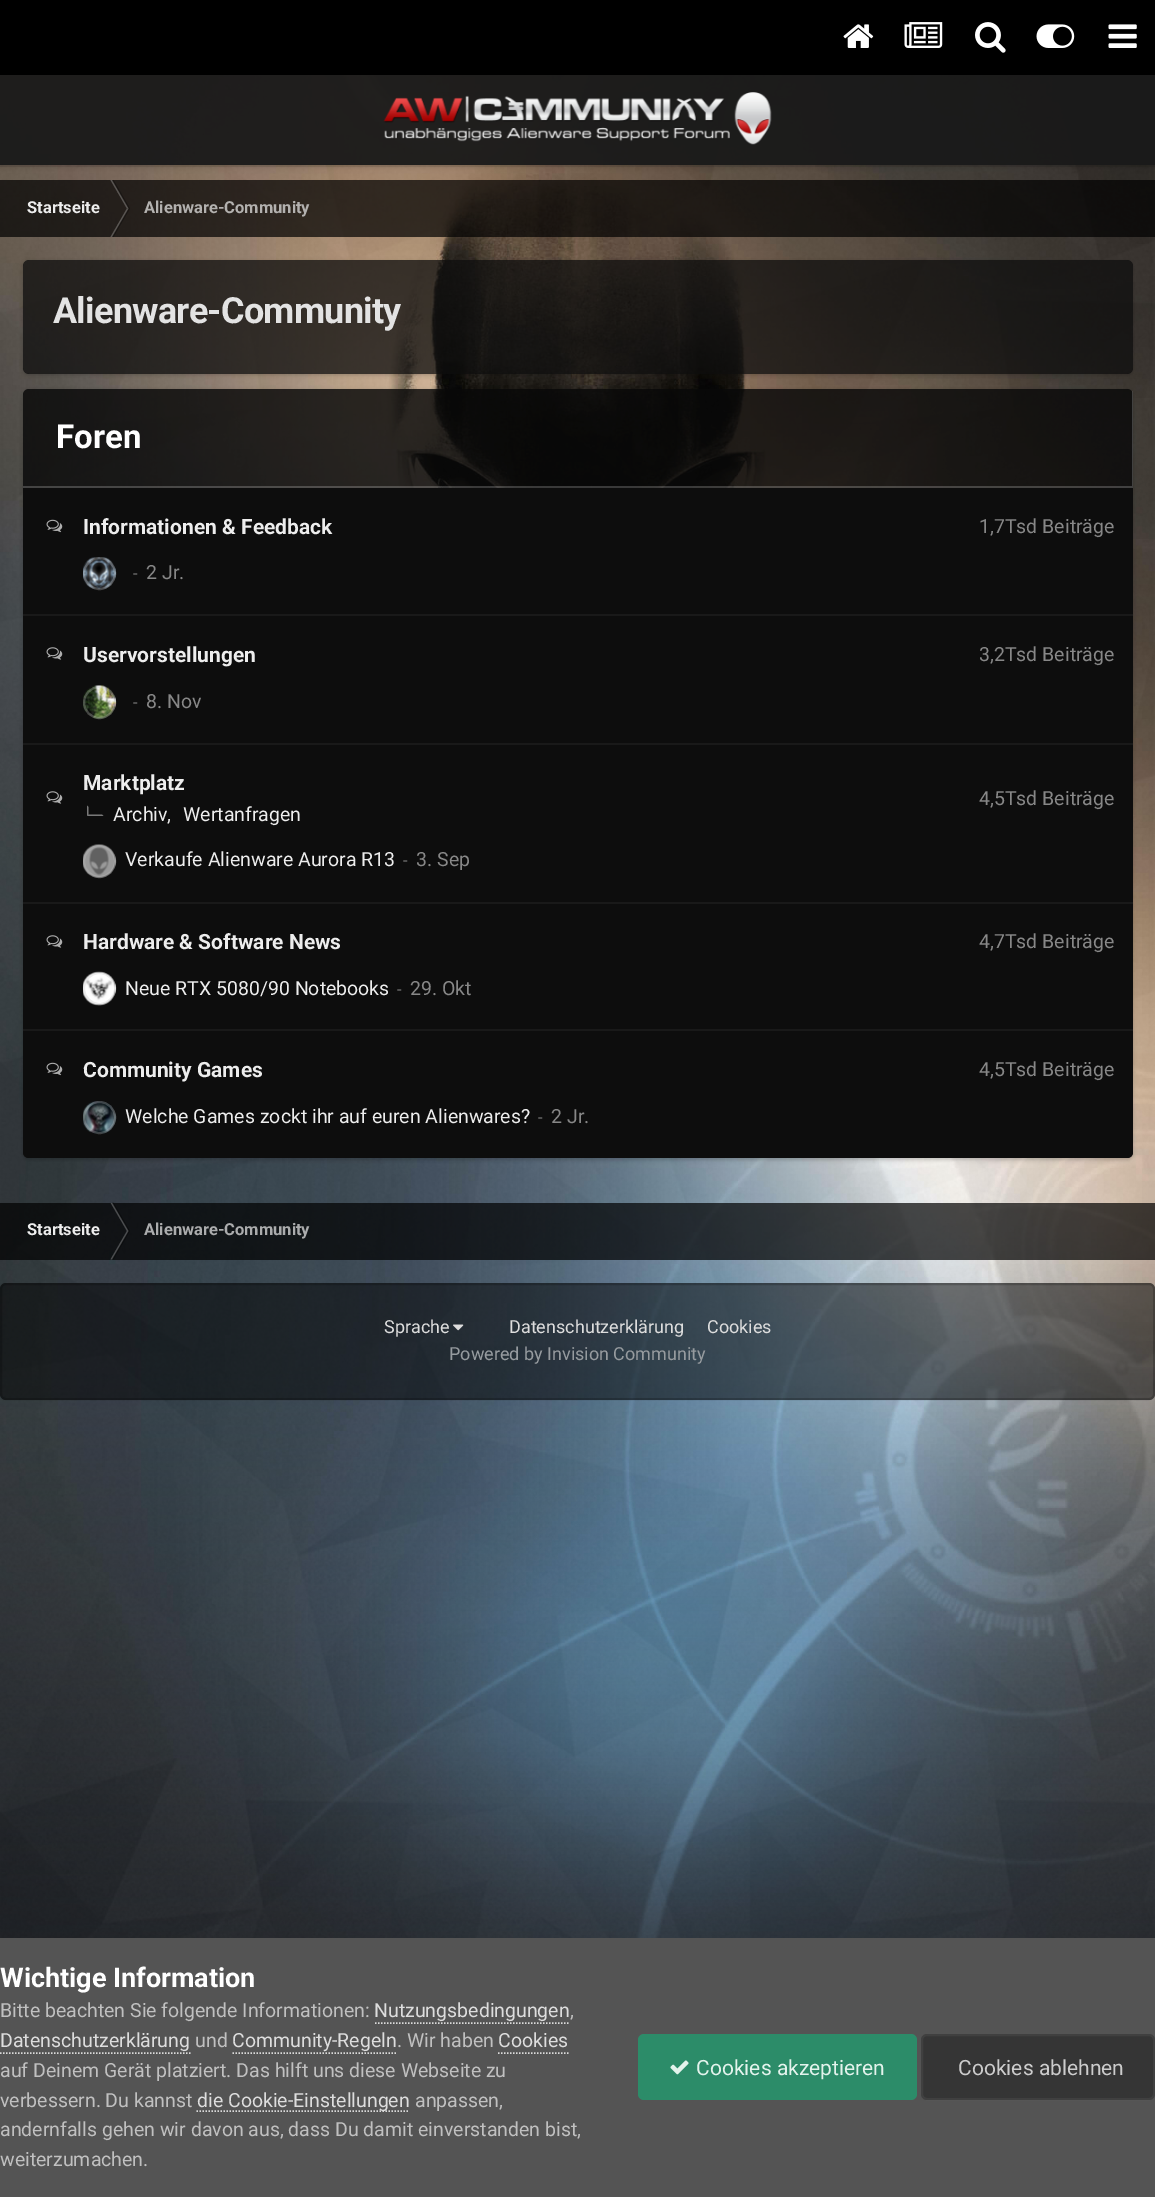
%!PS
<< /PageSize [1155 2197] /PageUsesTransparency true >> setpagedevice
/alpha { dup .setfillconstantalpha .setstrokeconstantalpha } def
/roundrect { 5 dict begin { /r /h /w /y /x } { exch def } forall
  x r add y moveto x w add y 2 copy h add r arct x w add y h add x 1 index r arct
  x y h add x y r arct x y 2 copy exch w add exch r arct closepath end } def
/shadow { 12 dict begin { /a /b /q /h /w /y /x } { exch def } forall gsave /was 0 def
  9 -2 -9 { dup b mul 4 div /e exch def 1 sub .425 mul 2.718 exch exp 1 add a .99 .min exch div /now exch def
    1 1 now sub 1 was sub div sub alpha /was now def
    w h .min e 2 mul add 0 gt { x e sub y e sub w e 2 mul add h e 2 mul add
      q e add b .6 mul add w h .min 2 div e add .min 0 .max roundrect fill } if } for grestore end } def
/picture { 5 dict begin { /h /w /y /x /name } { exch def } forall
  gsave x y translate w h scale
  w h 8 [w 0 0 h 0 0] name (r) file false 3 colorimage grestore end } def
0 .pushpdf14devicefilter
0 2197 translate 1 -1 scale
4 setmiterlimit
1 setgray
0 0 1155 2197 rectfill
0 setgray
0 0 1155 75 rectfill
(img1.rgb) 843 24 31 24 picture
(img2.rgb) 904 22 39 26 picture
(img3.rgb) 975 22 31 31 picture
(img4.rgb) 1036 24 39 24 picture
(img5.rgb) 1108 24 29 24 picture
(img7.rgb) 0 75 1155 1863 picture
(img8.rgb) 0 75 1155 1863 picture
0.1 alpha
0 165 1155 2 rectfill
gsave
newpath 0 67 moveto 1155 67 lineto 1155 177 lineto 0 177 lineto closepath 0 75 moveto 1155 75 lineto 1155 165 lineto 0 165 lineto closepath eoclip newpath
1 alpha
0 77 1155 90 0 3 0.15 shadow
grestore
0.95 alpha
0.098 setgray
0 75 1155 90 rectfill
1 alpha
(img6.rgb) 383 92 389 53 picture
0.7 alpha
0 setgray
0 180 1155 57 rectfill
/Roboto-Bold [16.5 0 0 -16.5 0 0] selectfont
1 alpha
0.929 setgray
27 213 moveto (Startseite) show
0.357 0.341 0.329 setrgbcolor
newpath 110.5 180 moveto 112 180 lineto 128.5 208.5 lineto 127 208.5 lineto closepath fill
0.3 alpha
0 setgray
newpath 112 180 moveto 113.5 180 lineto 130 208.5 lineto 128.5 208.5 lineto closepath fill
1 alpha
0.357 0.341 0.329 setrgbcolor
newpath 110.5 237 moveto 112 237 lineto 128.5 208.5 lineto 127 208.5 lineto closepath fill
0.3 alpha
0 setgray
newpath 112 237 moveto 113.5 237 lineto 130 208.5 lineto 128.5 208.5 lineto closepath fill
1 alpha
0.702 0.694 0.686 setrgbcolor
144 213 moveto (Alienware-Community) show
gsave
newpath 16 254 moveto 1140 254 lineto 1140 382 lineto 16 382 lineto closepath 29 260 moveto 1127 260 lineto 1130.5 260 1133 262.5 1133 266 curveto 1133 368 lineto 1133 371.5 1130.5 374 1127 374 curveto 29 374 lineto 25.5 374 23 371.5 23 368 curveto 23 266 lineto 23 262.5 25.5 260 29 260 curveto closepath eoclip newpath
0 setgray
23 261 1110 114 6 2 0.2 shadow
grestore
0.75 alpha
0.051 setgray
23 260 1110 114 6 roundrect fill
/Roboto-Bold [36 0 0 -36 0 0] selectfont
1 alpha
0.89 setgray
53 323 moveto -0.75 0 (Alienware-Community) ashow
gsave
newpath 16 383 moveto 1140 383 lineto 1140 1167 lineto 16 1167 lineto closepath 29 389 moveto 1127 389 lineto 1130.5 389 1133 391.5 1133 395 curveto 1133 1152 lineto 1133 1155.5 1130.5 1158 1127 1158 curveto 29 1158 lineto 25.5 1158 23 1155.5 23 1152 curveto 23 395 lineto 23 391.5 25.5 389 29 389 curveto closepath eoclip newpath
0 setgray
23 390 1110 770 6 2 0.2 shadow
grestore
0.75 alpha
0.051 setgray
23 389 1110 769 6 roundrect fill
0.3 alpha
0 setgray
newpath 29 389 moveto 1127 389 lineto 1130.5 389 1133 391.5 1133 395 curveto 1133 488 lineto 23 488 lineto 23 395 lineto 23 391.5 25.5 389 29 389 curveto closepath fill
0.2 alpha
1 setgray
newpath 23 486 moveto 23 488 lineto 1133 488 lineto 1133 395 lineto 1133 394 1133 392 1132 391 curveto 1132 486 lineto closepath fill
/Roboto-Bold [33 0 0 -33 0 0] selectfont
1 alpha
56 448 moveto (Foren) show
0.051 setgray
newpath 23 488 moveto 1133 488 lineto 1133 1152 lineto 1133 1155.5 1130.5 1158 1127 1158 curveto 29 1158 lineto 25.5 1158 23 1155.5 23 1152 curveto closepath fill
0.098 setgray
23 614 1110 2 rectfill
(img9.rgb) 46 519 17 14 picture
/Roboto-Bold [21 0 0 -21 0 0] selectfont
0.929 setgray
83 534 moveto (Informationen & Feedback) show
/Roboto-Regular [19.5 0 0 -19.5 0 0] selectfont
0.529 setgray
979 533 moveto (1,7Tsd Beiträge) show
(img10.rgb) 83 557 33 33 picture
0.3 alpha
0.749 setgray
2 setlinewidth
newpath 99.5 573.5 15.5 0 360 arc closepath stroke
/Roboto-Regular [16.5 0 0 -16.5 0 0] selectfont
1 alpha
0.529 setgray
133 579 moveto (-) show
/Roboto-Regular [19.5 0 0 -19.5 0 0] selectfont
146 579 moveto (2 Jr.) show
0.098 setgray
23 743 1110 2 rectfill
(img11.rgb) 46 647 17 13 picture
/Roboto-Bold [21 0 0 -21 0 0] selectfont
0.929 setgray
83 662 moveto (Uservorstellungen) show
/Roboto-Regular [19.5 0 0 -19.5 0 0] selectfont
0.529 setgray
979 661 moveto (3,2Tsd Beiträge) show
(img12.rgb) 83 685 33 34 picture
0.3 alpha
0.749 setgray
newpath 99.5 702.5 15.5 0 360 arc closepath stroke
/Roboto-Regular [16.5 0 0 -16.5 0 0] selectfont
1 alpha
0.529 setgray
133 708 moveto (-) show
/Roboto-Regular [19.5 0 0 -19.5 0 0] selectfont
146 708 moveto (8. Nov) show
0.098 setgray
23 902 1110 2 rectfill
(img11.rgb) 46 791 17 13 picture
/Roboto-Bold [21 0 0 -21 0 0] selectfont
0.929 setgray
83 790 moveto (Marktplatz) show
0.471 setgray
newpath 103.5 816 moveto 87 816 lineto 88.5 814.5 lineto 102 814.5 lineto closepath fill
newpath 87 816 moveto 87 805.5 lineto 88.5 807 lineto 88.5 814.5 lineto closepath fill
/Roboto-Regular [19.5 0 0 -19.5 0 0] selectfont
0.929 setgray
113 821 moveto (Archiv,) show
183 821 moveto (Wertanfragen) show
0.529 setgray
979 805 moveto (4,5Tsd Beiträge) show
(img13.rgb) 83 844 33 34 picture
0.3 alpha
0.749 setgray
newpath 99.5 861.5 15.5 0 360 arc closepath stroke
1 alpha
0.929 setgray
125 866 moveto (Verkaufe Alienware Aurora R13) show
/Roboto-Regular [16.5 0 0 -16.5 0 0] selectfont
0.529 setgray
403 866 moveto (-) show
/Roboto-Regular [19.5 0 0 -19.5 0 0] selectfont
416 866 moveto (3. Sep) show
0.098 setgray
23 1029 1110 2 rectfill
(img11.rgb) 46 935 17 13 picture
/Roboto-Bold [21 0 0 -21 0 0] selectfont
0.929 setgray
83 949 moveto (Hardware & Software News) show
/Roboto-Regular [19.5 0 0 -19.5 0 0] selectfont
0.529 setgray
979 948 moveto (4,7Tsd Beiträge) show
(img14.rgb) 83 971 33 35 picture
0.3 alpha
0.749 setgray
newpath 99.5 988.5 15.5 0 360 arc closepath stroke
1 alpha
0.929 setgray
125 995 moveto (Neue RTX 5080/90 Notebooks) show
/Roboto-Regular [16.5 0 0 -16.5 0 0] selectfont
0.529 setgray
397 995 moveto (-) show
/Roboto-Regular [19.5 0 0 -19.5 0 0] selectfont
410 995 moveto (29. Okt) show
(img9.rgb) 46 1062 17 14 picture
/Roboto-Bold [21 0 0 -21 0 0] selectfont
0.929 setgray
83 1077 moveto (Community Games) show
/Roboto-Regular [19.5 0 0 -19.5 0 0] selectfont
0.529 setgray
979 1076 moveto (4,5Tsd Beiträge) show
(img15.rgb) 83 1101 33 33 picture
0.3 alpha
0.749 setgray
newpath 99.5 1117.5 15.5 0 360 arc closepath stroke
1 alpha
0.929 setgray
125 1123 moveto (Welche Games zockt ihr auf euren Alienwares?) show
/Roboto-Regular [16.5 0 0 -16.5 0 0] selectfont
0.529 setgray
538 1123 moveto (-) show
/Roboto-Regular [19.5 0 0 -19.5 0 0] selectfont
551 1123 moveto (2 Jr.) show
0.7 alpha
0 setgray
0 1203 1155 57 rectfill
/Roboto-Bold [16.5 0 0 -16.5 0 0] selectfont
1 alpha
0.929 setgray
27 1235 moveto (Startseite) show
gsave
0 1203 1122 57 rectclip
0.298 0.306 0.314 setrgbcolor
newpath 110.5 1202.5 moveto 112 1202.5 lineto 128.5 1231 lineto 127 1231 lineto closepath fill
grestore
0.3 alpha
0 setgray
newpath 112 1202.5 moveto 113.5 1202.5 lineto 130 1231 lineto 128.5 1231 lineto closepath fill
1 alpha
0.298 0.306 0.314 setrgbcolor
newpath 110.5 1259.5 moveto 112 1259.5 lineto 128.5 1231 lineto 127 1231 lineto closepath fill
0.3 alpha
0 setgray
newpath 112 1259.5 moveto 113.5 1259.5 lineto 130 1231 lineto 128.5 1231 lineto closepath fill
1 alpha
0.671 0.675 0.678 setrgbcolor
144 1235 moveto (Alienware-Community) show
0.5 alpha
0 setgray
0 1283 1155 117 6 roundrect fill
0.2 alpha
1 1284 1153 115 5 roundrect stroke
/Roboto-Regular [18 0 0 -18 0 0] selectfont
1 alpha
0.867 setgray
384 1333 moveto (Sprache) show
(img16.rgb) 453 1324 11 7 picture
509 1333 moveto (Datenschutzerklärung) show
707 1333 moveto (Cookies) show
0.588 0.608 0.624 setrgbcolor
449 1360 moveto (Powered by Invision Community) show
0.329 setgray
0 1938 1155 259 rectfill
/Roboto-Bold [27 0 0 -27 0 0] selectfont
1 setgray
0 1987 moveto (Wichtige Information) show
/Roboto-Regular [19.5 0 0 -19.5 0 0] selectfont
0.753 setgray
0 2017 moveto (Bitte beachten Sie folgende Informationen:) show
0.867 setgray
374 2017 moveto (Nutzungsbedingungen) show
0.855 setgray
1.5 setlinewidth
[1.5 1.5] 0 setdash
newpath 375 2023 moveto 570 2023 lineto stroke
0.753 setgray
570 2017 moveto (,) show
0.867 setgray
0 2047 moveto (Datenschutzerklärung) show
0.855 setgray
newpath 0 2053 moveto 190.5 2053 lineto stroke
0.753 setgray
195 2047 moveto (und) show
0.867 setgray
232 2047 moveto (Community-Regeln) show
0.855 setgray
newpath 232.5 2053 moveto 396 2053 lineto stroke
0.753 setgray
397 2047 moveto (. Wir haben) show
0.867 setgray
498 2047 moveto (Cookies) show
0.855 setgray
newpath 498 2053 moveto 568.5 2053 lineto stroke
0.753 setgray
0 2077 moveto (auf Deinem Gerät platziert. Das hilft uns diese Webseite zu) show
0 2107 moveto (verbessern. Du kannst) show
0.855 setgray
newpath 196.5 2111 moveto 409.5 2111 lineto stroke
0.867 setgray
197 2107 moveto (die Cookie-Einstellungen) show
0.753 setgray
415 2107 moveto (anpassen,) show
0 2136 moveto (andernfalls gehen wir davon aus, dass Du damit einverstanden bist,) show
0 2166 moveto (weiterzumachen.) show
0.173 0.549 0.412 setrgbcolor
638 2034 279 66 6 roundrect fill
(img17.rgb) 670 2060 19 15 picture
/Roboto-Regular [21 0 0 -21 0 0] selectfont
0.89 0.953 0.925 setrgbcolor
696 2075 moveto (Cookies akzeptieren) show
0.208 setgray
921 2034 234 66 6 roundrect fill
0.07 alpha
0.8 setgray
2 setlinewidth
[] 0 setdash
922 2035 232 64 5 roundrect stroke
1 alpha
958 2075 moveto (Cookies ablehnen) show
.poppdf14devicefilter showpage
